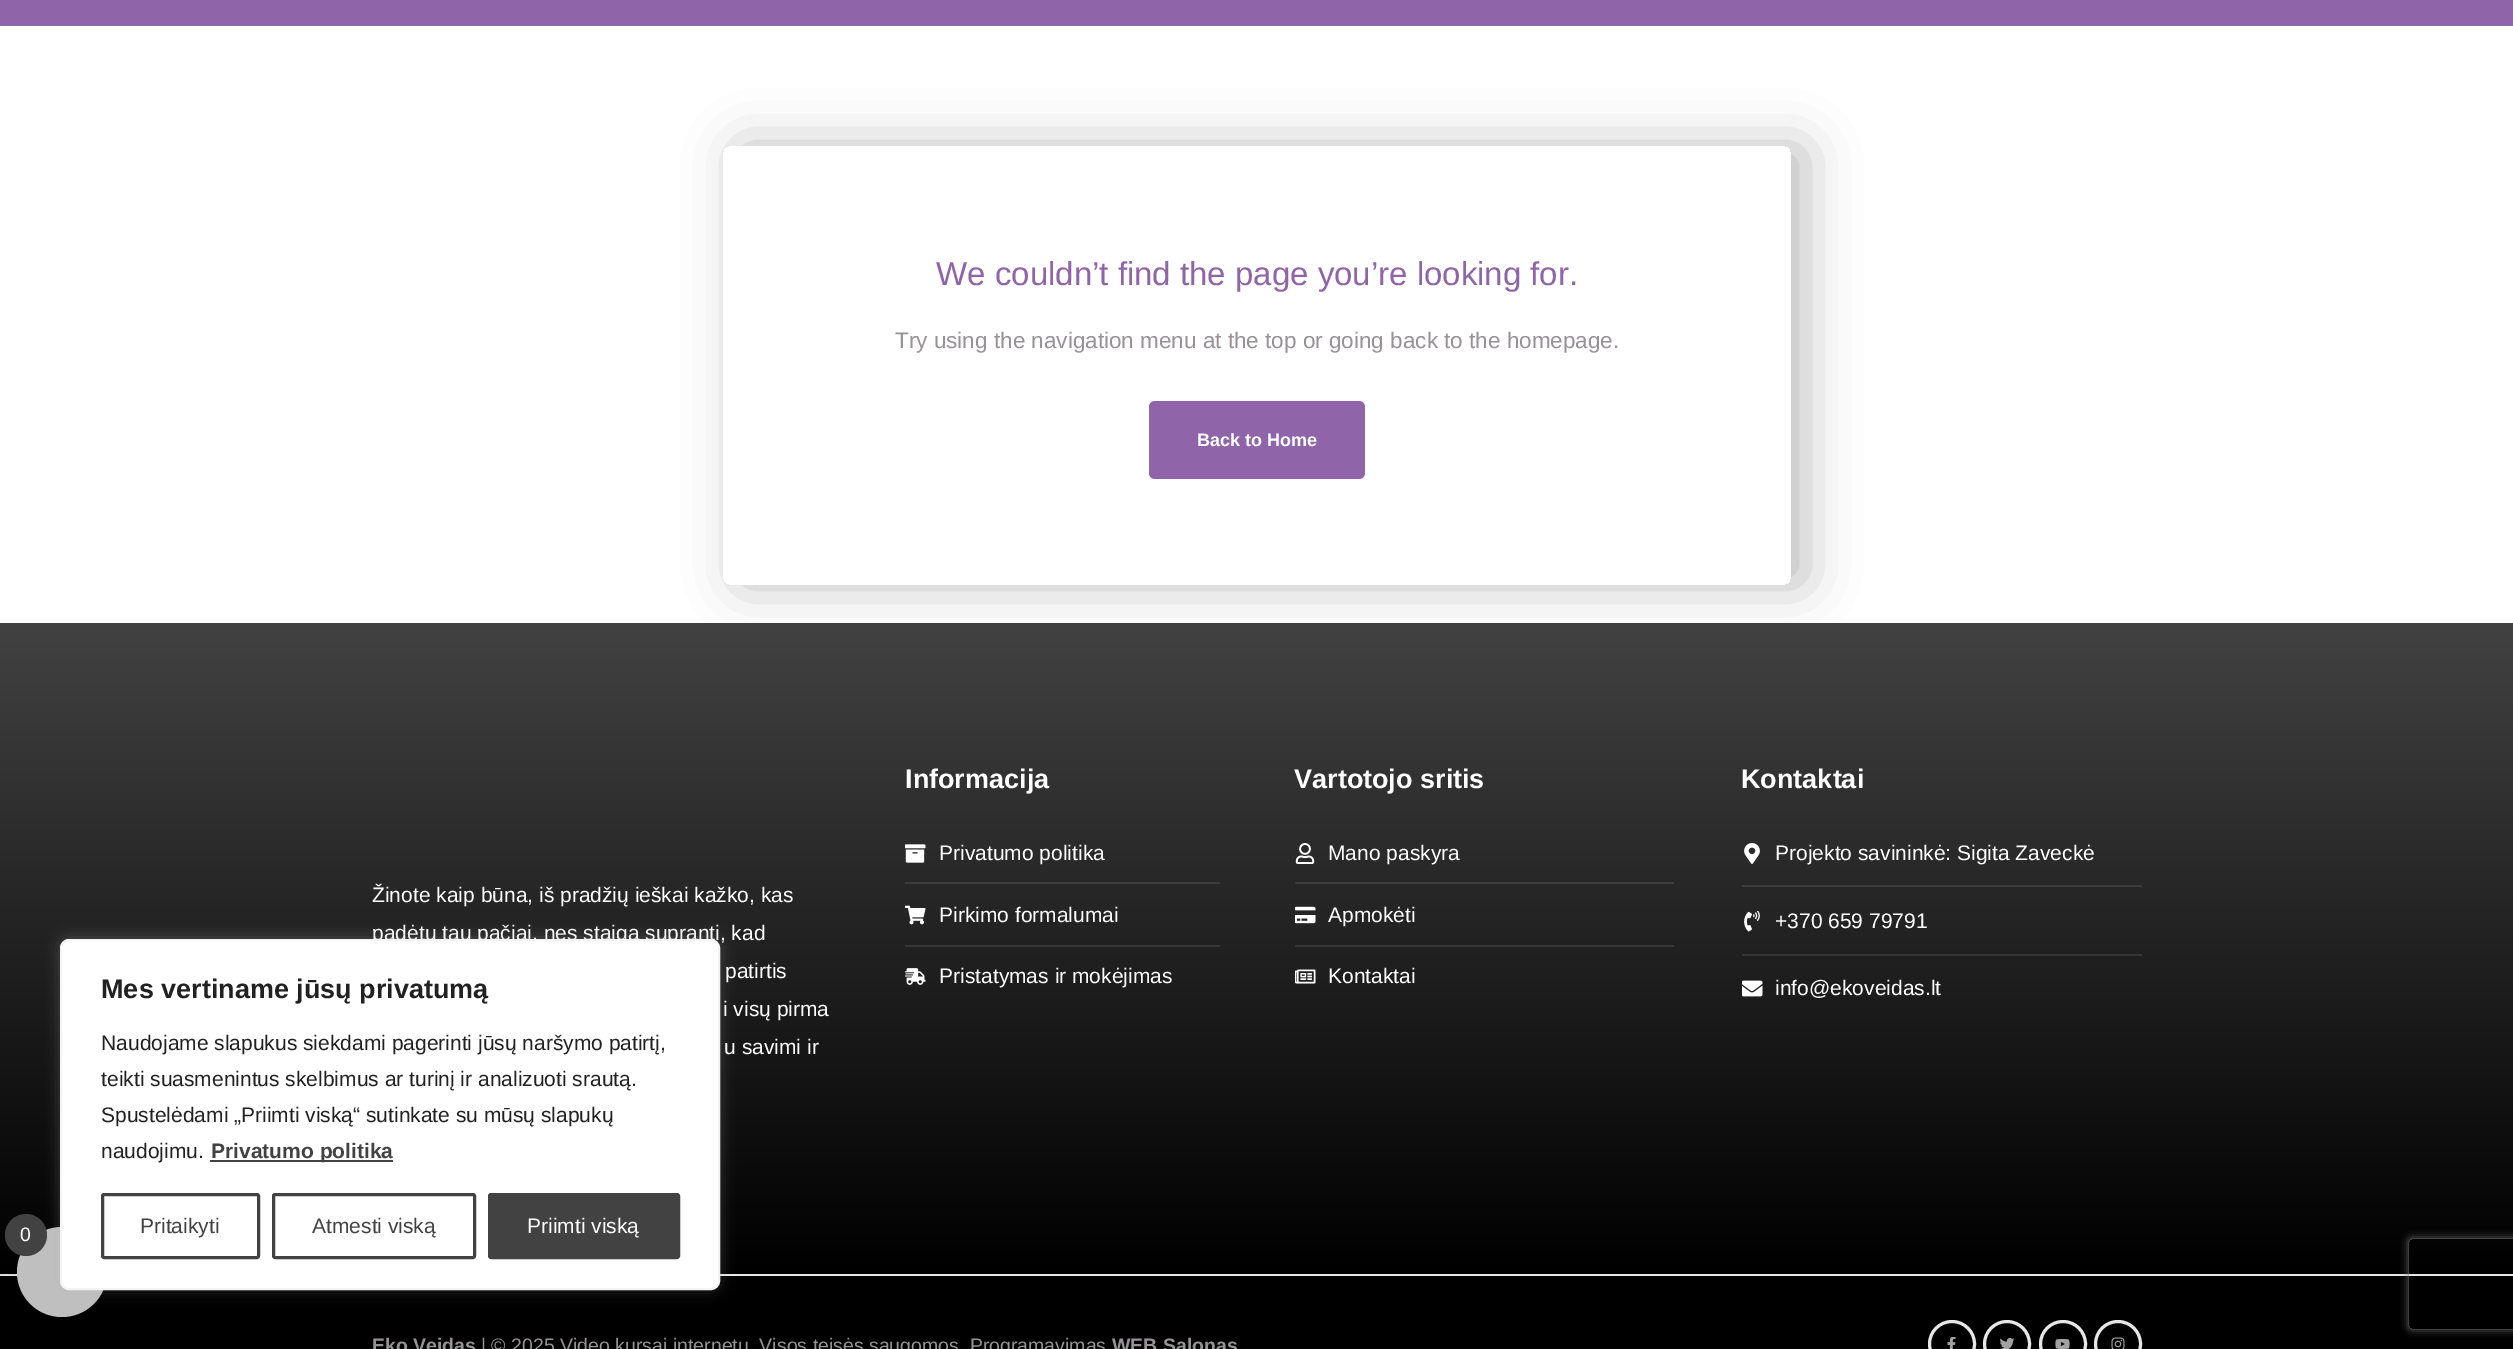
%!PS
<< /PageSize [2513 1349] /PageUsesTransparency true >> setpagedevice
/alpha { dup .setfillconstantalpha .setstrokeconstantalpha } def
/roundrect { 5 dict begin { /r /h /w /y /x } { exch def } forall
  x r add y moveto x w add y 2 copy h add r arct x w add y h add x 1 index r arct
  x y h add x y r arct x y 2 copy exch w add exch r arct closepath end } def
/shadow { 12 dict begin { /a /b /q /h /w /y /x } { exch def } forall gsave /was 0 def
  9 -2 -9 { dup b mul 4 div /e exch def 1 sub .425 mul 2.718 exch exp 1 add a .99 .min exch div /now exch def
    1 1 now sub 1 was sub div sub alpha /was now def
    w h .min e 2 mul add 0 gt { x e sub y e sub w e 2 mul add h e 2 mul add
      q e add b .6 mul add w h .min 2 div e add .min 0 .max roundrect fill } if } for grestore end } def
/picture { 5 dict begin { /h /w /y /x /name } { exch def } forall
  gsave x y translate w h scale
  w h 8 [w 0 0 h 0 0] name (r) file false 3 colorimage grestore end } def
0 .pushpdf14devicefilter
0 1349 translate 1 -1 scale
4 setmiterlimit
1 setgray
0 0 2513 1349 rectfill
0.565 0.392 0.659 setrgbcolor
0 0 2513 26 rectfill
gsave
newpath 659 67 moveto 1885 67 lineto 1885 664 lineto 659 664 lineto closepath 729 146 moveto 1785 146 lineto 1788.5 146 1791 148.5 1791 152 curveto 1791 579 lineto 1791 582.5 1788.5 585 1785 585 curveto 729 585 lineto 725.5 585 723 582.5 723 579 curveto 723 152 lineto 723 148.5 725.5 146 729 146 curveto closepath eoclip newpath
0 setgray
738 146 1068 439 6 26 0.25 shadow
grestore
/LiberationSans-Regular [33 0 0 -33 0 0] selectfont
936 285 moveto (We couldn’t find the page you’re looking for.) show
/LiberationSans-Regular [22.5 0 0 -22.5 0 0] selectfont
0.588 0.573 0.588 setrgbcolor
895 348 moveto (Try using the navigation menu at the top or going back to the homepage.) show
0.565 0.392 0.659 setrgbcolor
1149 401 216 78 6 roundrect fill
/LiberationSans-Bold [18 0 0 -18 0 0] selectfont
1 setgray
1197 446 moveto (Back to Home) show
gsave newpath 0 623 moveto 2513 623 lineto 2513 1274 lineto 0 1274 lineto closepath clip newpath
<< /ShadingType 2 /ColorSpace /DeviceRGB /Coords [1257 622 1257 1274] /Extend [true true] /Function << /FunctionType 2 /Domain [0 1] /C0 [0.259 0.259 0.259] /C1 [0 0 0] /N 1 >> >> shfill grestore
/LiberationSans-Regular [21 0 0 -21 0 0] selectfont
372 902 moveto (Žinote kaip būna, iš pradžių ieškai kažko, kas) show
372 940 moveto (padėtų tau pačiai, nes staiga supranti, kad) show
725 978 moveto (patirtis) show
723 1016 moveto (i visų pirma) show
724 1054 moveto (u savimi ir) show
/LiberationSans-Bold [27 0 0 -27 0 0] selectfont
905 788 moveto (Informacija) show
(img1.rgb) 905 844 21 19 picture
/LiberationSans-Regular [21 0 0 -21 0 0] selectfont
939 860 moveto (Privatumo politika) show
0.235 setgray
905 882 315 2 rectfill
(img2.rgb) 905 905 21 20 picture
1 setgray
939 922 moveto (Pirkimo formalumai) show
0.212 setgray
905 945 315 2 rectfill
(img3.rgb) 905 968 21 17 picture
1 setgray
939 983 moveto (Pristatymas ir mokėjimas) show
/LiberationSans-Bold [27 0 0 -27 0 0] selectfont
1294 788 moveto (Vartotojo sritis) show
(img4.rgb) 1295 843 20 21 picture
/LiberationSans-Regular [21 0 0 -21 0 0] selectfont
1328 860 moveto (Mano paskyra) show
0.235 setgray
1295 882 379 2 rectfill
(img5.rgb) 1295 906 21 18 picture
1 setgray
1328 922 moveto (Apmokėti) show
0.212 setgray
1295 945 379 2 rectfill
(img6.rgb) 1295 969 21 15 picture
1 setgray
1328 983 moveto (Kontaktai) show
/LiberationSans-Bold [27 0 0 -27 0 0] selectfont
1741 788 moveto (Kontaktai) show
(img7.rgb) 1744 843 16 21 picture
/LiberationSans-Regular [21 0 0 -21 0 0] selectfont
1775 860 moveto (Projekto savininkė: Sigita Zaveckė) show
0.231 setgray
1742 885 400 2 rectfill
(img8.rgb) 1744 911 16 21 picture
1 setgray
1775 928 moveto (+370 659 79791) show
0.208 setgray
1742 954 400 2 rectfill
(img9.rgb) 1742 980 21 17 picture
1 setgray
1775 995 moveto (info@ekoveidas.lt) show
0 setgray
0 1276 2513 73 rectfill
0.906 setgray
0 1274 2513 2 rectfill
/LiberationSans-Bold [19.5 0 0 -19.5 0 0] selectfont
0.588 0.573 0.588 setrgbcolor
372 1352 moveto (Eko Veidas) show
/LiberationSans-Regular [19.5 0 0 -19.5 0 0] selectfont
481 1352 moveto (| © 2025 Video kursai internetu. Visos teisės saugomos. Programavimas) show
/LiberationSans-Bold [19.5 0 0 -19.5 0 0] selectfont
1112 1352 moveto (WEB Salonas) show
0.902 setgray
3 setlinewidth
newpath 1952 1344 22.5 0 360 arc closepath stroke
(img10.rgb) 1947 1337 9 12 picture
newpath 2007 1344 22.5 0 360 arc closepath stroke
(img11.rgb) 2000 1337 15 12 picture
newpath 2063 1344 22.5 0 360 arc closepath stroke
(img12.rgb) 2055 1339 15 10 picture
newpath 2118 1344 22.5 0 360 arc closepath stroke
(img13.rgb) 2111 1337 14 12 picture
0 setgray
-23 1245 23 104 0 7.5 0.1 shadow
14 1224 96 96 48 11 0.1 shadow
0.749 setgray
newpath 62 1272 45 0 360 arc closepath fill
0.259 setgray
newpath 26 1235 21 0 360 arc closepath fill
0.675 0.671 0.671 setrgbcolor
60 938 660 351 9 7.5 0.3 shadow
1 setgray
61 940 658 349 8 roundrect gsave fill grestore
0.957 setgray
2 setlinewidth
stroke
/LiberationSans-Bold [27 0 0 -27 0 0] selectfont
0.129 setgray
101 998 moveto (Mes vertiname jūsų privatumą) show
/LiberationSans-Regular [21 0 0 -21 0 0] selectfont
101 1050 moveto (Naudojame slapukus siekdami pagerinti jūsų naršymo patirtį,) show
101 1086 moveto (teikti suasmenintus skelbimus ar turinį ir analizuoti srautą.) show
101 1122 moveto (Spustelėdami „Priimti viską“ sutinkate su mūsų slapukų) show
101 1158 moveto (naudojimu.) show
0.259 setgray
210 1160 183 2 rectfill
/LiberationSans-Bold [21 0 0 -21 0 0] selectfont
211 1158 moveto (Privatumo politika) show
3 setlinewidth
102.5 1194.5 156 63 1.5 roundrect stroke
/LiberationSans-Regular [21 0 0 -21 0 0] selectfont
140 1233 moveto (Pritaikyti) show
273.5 1194.5 201 63 1.5 roundrect stroke
312 1233 moveto (Atmesti viską) show
489.5 1194.5 189 63 1.5 roundrect gsave fill grestore
stroke
1 setgray
527 1233 moveto (Priimti viską) show
/LiberationSans-Regular [19.5 0 0 -19.5 0 0] selectfont
20 1241 moveto (0) show
gsave
newpath 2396 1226 moveto 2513 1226 lineto 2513 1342 lineto 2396 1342 lineto closepath 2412 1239 moveto 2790 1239 lineto 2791.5 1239 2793 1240.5 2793 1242 curveto 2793 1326 lineto 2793 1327.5 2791.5 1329 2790 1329 curveto 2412 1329 lineto 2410.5 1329 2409 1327.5 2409 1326 curveto 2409 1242 lineto 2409 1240.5 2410.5 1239 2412 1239 curveto closepath eoclip newpath
0.502 setgray
2409 1239 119 90 3 4 1 shadow
grestore
.poppdf14devicefilter showpage
